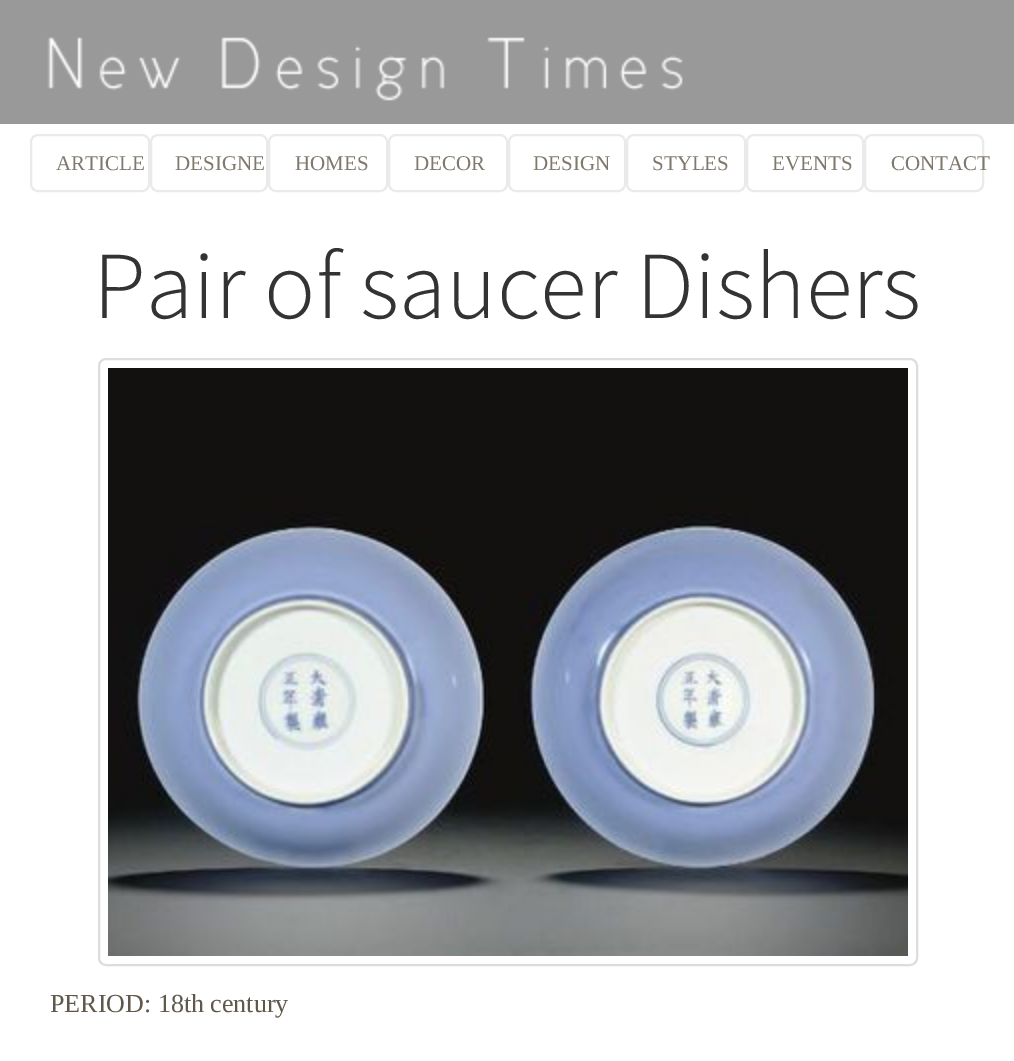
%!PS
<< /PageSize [1014 1061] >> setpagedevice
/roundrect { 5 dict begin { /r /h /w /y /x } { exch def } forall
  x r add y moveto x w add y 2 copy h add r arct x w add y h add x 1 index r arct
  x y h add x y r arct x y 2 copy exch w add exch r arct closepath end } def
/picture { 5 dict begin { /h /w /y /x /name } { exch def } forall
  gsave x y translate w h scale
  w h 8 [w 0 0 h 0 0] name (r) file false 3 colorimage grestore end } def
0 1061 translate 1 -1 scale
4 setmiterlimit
0.6 setgray
0 0 1014 1061 rectfill
(img1.rgb) 47 37 636 64 picture
1 setgray
0 124 1014 937 rectfill
0.918 setgray
2 setlinewidth
31 135 118 56 7 roundrect stroke
/LiberationSerif-Regular [21 0 0 -21 0 0] selectfont
0.498 0.471 0.427 setrgbcolor
56 170 moveto (ARTICLE) show
0.918 setgray
151 135 116 56 7 roundrect stroke
0.498 0.471 0.427 setrgbcolor
175 170 moveto (DESIGNE) show
0.918 setgray
269 135 118 56 7 roundrect stroke
0.498 0.471 0.427 setrgbcolor
295 170 moveto (HOMES) show
0.918 setgray
389 135 118 56 7 roundrect stroke
0.498 0.471 0.427 setrgbcolor
414 170 moveto (DECOR) show
0.918 setgray
509 135 116 56 7 roundrect stroke
0.498 0.471 0.427 setrgbcolor
533 170 moveto (DESIGN) show
0.918 setgray
627 135 118 56 7 roundrect stroke
0.498 0.471 0.427 setrgbcolor
652 170 moveto (STYLES) show
0.918 setgray
747 135 116 56 7 roundrect stroke
0.498 0.471 0.427 setrgbcolor
772 170 moveto (EVENTS) show
0.918 setgray
865 135 118 56 7 roundrect stroke
0.498 0.471 0.427 setrgbcolor
891 170 moveto (CONTACT) show
/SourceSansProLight-Light [96 0 0 -96 0 0] selectfont
0.2 setgray
93 318 moveto (Pair of saucer Dishers) show
0.867 setgray
99 359 818 606 7 roundrect stroke
(img2.rgb) 108 368 800 588 picture
/LiberationSerif-Regular [26 0 0 -26 0 0] selectfont
0.373 0.345 0.294 setrgbcolor
50 1012 moveto (PERIOD: 18th century) show
showpage
